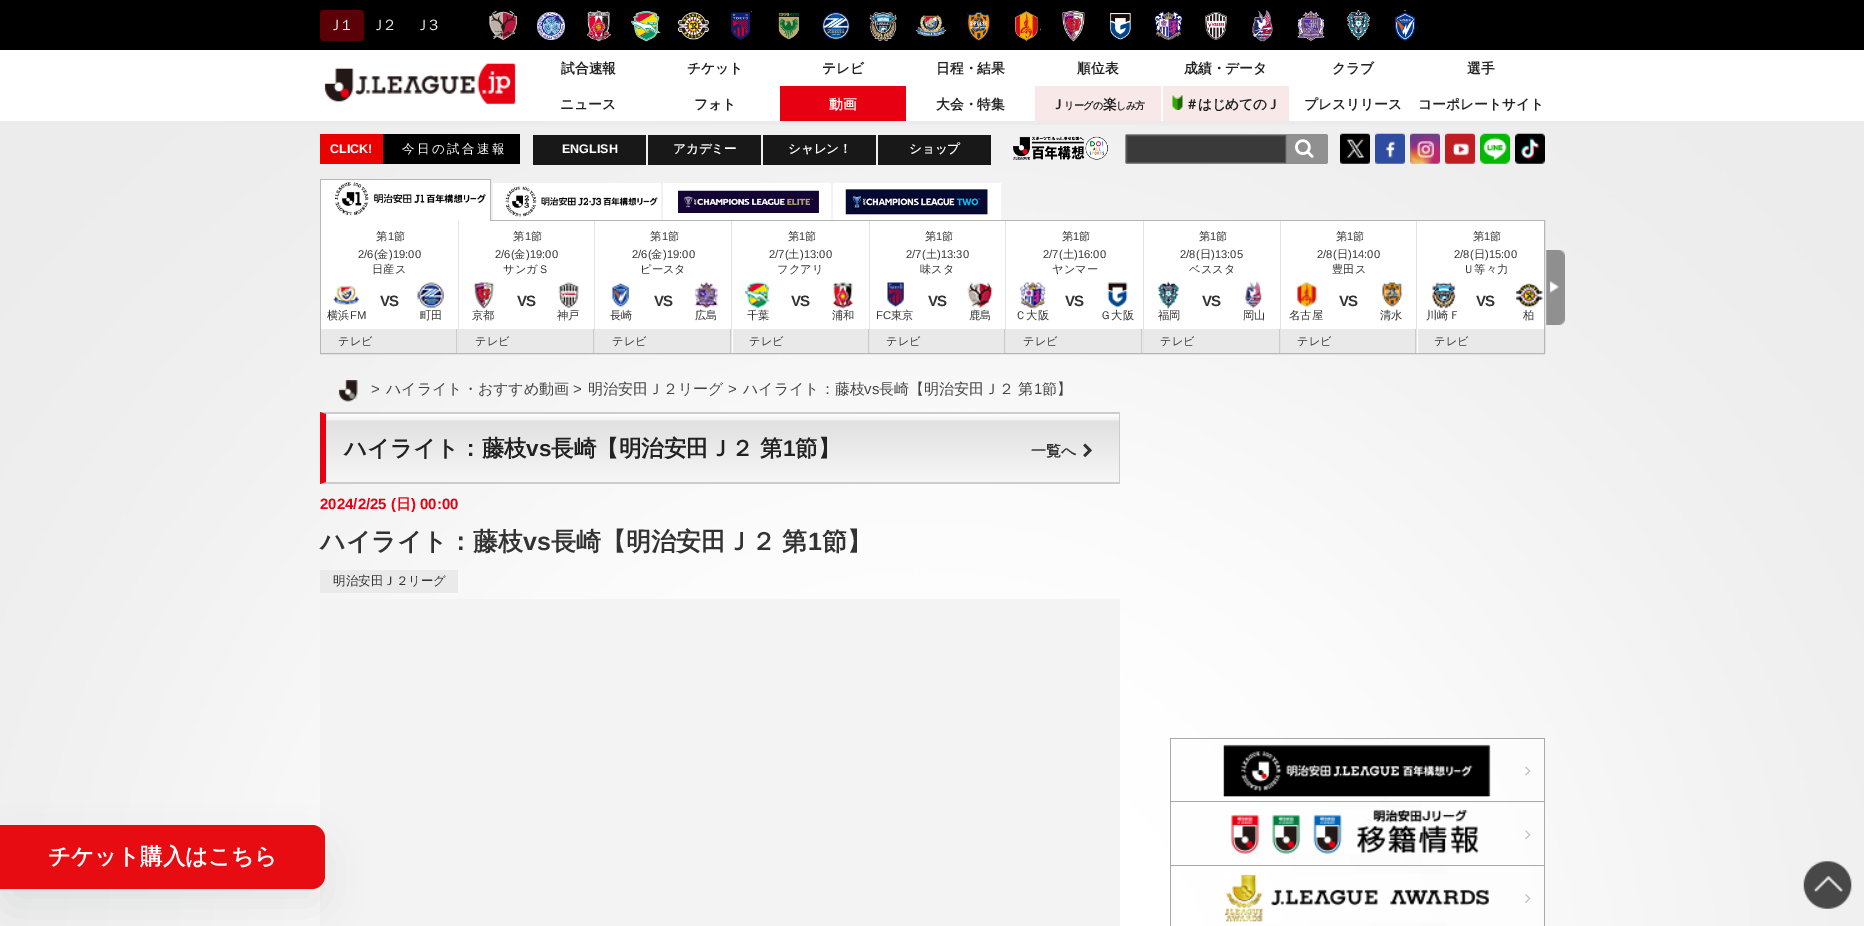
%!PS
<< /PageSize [1864 926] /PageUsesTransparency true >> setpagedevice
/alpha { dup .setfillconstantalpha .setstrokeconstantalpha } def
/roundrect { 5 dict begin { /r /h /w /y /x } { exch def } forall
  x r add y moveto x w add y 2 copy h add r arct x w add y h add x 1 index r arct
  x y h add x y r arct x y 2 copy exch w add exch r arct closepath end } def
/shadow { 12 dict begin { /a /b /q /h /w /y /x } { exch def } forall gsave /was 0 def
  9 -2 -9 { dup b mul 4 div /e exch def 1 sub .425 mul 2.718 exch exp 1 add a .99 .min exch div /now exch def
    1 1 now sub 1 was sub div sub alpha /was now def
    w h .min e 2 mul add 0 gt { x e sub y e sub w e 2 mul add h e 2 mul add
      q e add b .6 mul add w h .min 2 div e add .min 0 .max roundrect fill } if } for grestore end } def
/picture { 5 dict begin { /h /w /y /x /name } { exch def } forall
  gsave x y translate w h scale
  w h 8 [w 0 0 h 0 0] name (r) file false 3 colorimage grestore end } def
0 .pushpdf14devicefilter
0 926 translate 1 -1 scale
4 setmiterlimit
0.922 setgray
0 0 1864 926 rectfill
(img1.rgb) 0 125 1864 801 picture
0 setgray
0 0 1864 50 rectfill
0.361 0 0.027 setrgbcolor
320 10 44 31 4 roundrect fill
/WenQuanYiZenHei-Medium [15 0 0 -15 0 0] selectfont
0.914 setgray
328 30 moveto -4 0 (Ｊ１) ashow
371 30 moveto -4 0 (Ｊ２) ashow
415 30 moveto -4 0 (Ｊ３) ashow
(img2.rgb) 489 10 28 30 picture
(img3.rgb) 537 12 28 28 picture
(img4.rgb) 587 10 24 32 picture
(img5.rgb) 631 11 30 31 picture
(img6.rgb) 678 12 31 28 picture
(img7.rgb) 731 11 22 29 picture
(img8.rgb) 778 12 22 28 picture
(img9.rgb) 822 12 28 28 picture
(img10.rgb) 869 12 28 29 picture
(img11.rgb) 915 15 32 22 picture
(img12.rgb) 966 12 24 29 picture
(img13.rgb) 1015 11 26 30 picture
(img14.rgb) 1062 10 23 32 picture
(img15.rgb) 1110 13 21 27 picture
(img16.rgb) 1154 11 29 30 picture
(img17.rgb) 1205 12 22 28 picture
(img18.rgb) 1252 10 21 32 picture
(img19.rgb) 1297 10 28 31 picture
(img20.rgb) 1346 10 25 31 picture
(img21.rgb) 1395 10 23 31 picture
1 setgray
0 50 1864 71 rectfill
(img22.rgb) 324 62 192 43 picture
/WenQuanYiZenHei-Bold [13.75 0 0 -13.75 0 0] selectfont
0.133 setgray
561 73 moveto (試合速報) show
687 73 moveto (チケット) show
822 73 moveto (テレビ) show
936 73 moveto (日程・結果) show
1077 73 moveto (順位表) show
1184 73 moveto (成績・データ) show
1332 73 moveto (クラブ) show
1467 73 moveto (選手) show
560 109 moveto (ニュース) show
694 109 moveto (フォト) show
0.902 0 0.071 setrgbcolor
780 86 126 35 rectfill
1 setgray
829 109 moveto (動画) show
0.133 setgray
936 109 moveto (大会・特集) show
0.973 0.91 0.91 setrgbcolor
1035 86 126 35 rectfill
0.133 setgray
1051 109 moveto -0.5 0 (Ｊ) ashow
/WenQuanYiZenHei-Bold [10 0 0 -10 0 0] selectfont
1064 109 moveto -0.5 0 (リーグの) ashow
/WenQuanYiZenHei-Bold [13.75 0 0 -13.75 0 0] selectfont
1103 109 moveto -0.5 0 (楽) ashow
/WenQuanYiZenHei-Bold [10 0 0 -10 0 0] selectfont
1116 109 moveto -0.5 0 (しみ方) ashow
0.973 0.91 0.91 setrgbcolor
1163 86 126 35 rectfill
(img23.rgb) 1172 95 11 15 picture
/WenQuanYiZenHei-Bold [13.75 0 0 -13.75 0 0] selectfont
0.133 setgray
1185 109 moveto -0.5 0 (＃はじめてのＪ) ashow
1304 109 moveto (プレスリリース) show
1418 109 moveto (コーポレートサイト) show
0 setgray
383 134 137 30 rectfill
0.922 0 0 setrgbcolor
320 134 63 30 rectfill
/LiberationSans-Bold [12.5 0 0 -12.5 0 0] selectfont
1 setgray
330 153 moveto (CLICK!) show
/WenQuanYiZenHei-Medium [12.5 0 0 -12.5 0 0] selectfont
402 153 moveto 2.5 0 (今日の試合速報) ashow
0.094 setgray
533 135 113 30 rectfill
/LiberationSans-Bold [12.5 0 0 -12.5 0 0] selectfont
1 setgray
562 153 moveto (ENGLISH) show
0.094 setgray
648 135 113 30 rectfill
/WenQuanYiZenHei-Bold [12.5 0 0 -12.5 0 0] selectfont
1 setgray
673 153 moveto (アカデミー) show
0.094 setgray
763 135 113 30 rectfill
1 setgray
788 153 moveto (シャレン！) show
0.094 setgray
878 135 113 30 rectfill
1 setgray
909 153 moveto (ショップ) show
(img24.rgb) 1013 136 96 24 picture
0.565 setgray
1125 134 203 30 2.5 roundrect fill
0.227 setgray
newpath 1126.5 135.5 moveto 1285.5 135.5 lineto 1285.5 162.5 lineto 1126.5 162.5 lineto closepath gsave fill grestore
0.345 setgray
stroke
(img25.rgb) 1295 139 19 19 picture
(img26.rgb) 1340 133 30 31 picture
(img27.rgb) 1375 133 30 31 picture
(img28.rgb) 1410 133 30 31 picture
(img29.rgb) 1445 133 30 31 picture
(img30.rgb) 1480 133 30 31 picture
(img31.rgb) 1515 133 30 31 picture
0.714 setgray
320.5 220.5 1224 133 rectstroke
1 setgray
321 180 169 41 rectfill
0.714 setgray
320 179 171 1 rectfill
490 179 1 42 rectfill
320 179 1 42 rectfill
(img32.rgb) 335 182 151 34 picture
(img33.rgb) 493 183 168 37 picture
(img34.rgb) 663 183 168 37 picture
(img35.rgb) 833 183 168 37 picture
1 setgray
321 221 137 108 rectfill
0.89 setgray
458 221 1 132 rectfill
/WenQuanYiZenHei-Medium [11.25 0 0 -11.25 0 0] selectfont
0.2 setgray
376 240 moveto (第) show
/LiberationSans-Regular [11.25 0 0 -11.25 0 0] selectfont
388 240 moveto (1) show
/WenQuanYiZenHei-Medium [11.25 0 0 -11.25 0 0] selectfont
394 240 moveto (節) show
/LiberationSans-Regular [11.25 0 0 -11.25 0 0] selectfont
358 258 moveto (2/6\() show
/WenQuanYiZenHei-Medium [11.25 0 0 -11.25 0 0] selectfont
377 258 moveto (金) show
/LiberationSans-Regular [11.25 0 0 -11.25 0 0] selectfont
389 258 moveto (\)19:00) show
/WenQuanYiZenHei-Medium [11.25 0 0 -11.25 0 0] selectfont
372 273 moveto (日産ス) show
/LiberationSans-Bold [15 0 0 -15 0 0] selectfont
380 306 moveto -1 0 (VS) ashow
(img36.rgb) 333 286 27 20 picture
/WenQuanYiZenHei-Medium [11.25 0 0 -11.25 0 0] selectfont
327 319 moveto (横浜) show
/LiberationSans-Regular [11.25 0 0 -11.25 0 0] selectfont
350 319 moveto (FM) show
(img37.rgb) 417 282 27 27 picture
/WenQuanYiZenHei-Medium [11.25 0 0 -11.25 0 0] selectfont
420 319 moveto (町田) show
0.914 setgray
321 329 137 24 rectfill
0.796 setgray
456 329 1 24 rectfill
0.2 setgray
338 345 moveto (テレビ) show
1 setgray
459 221 135 108 rectfill
0.89 setgray
594 221 1 132 rectfill
0.2 setgray
513 240 moveto (第) show
/LiberationSans-Regular [11.25 0 0 -11.25 0 0] selectfont
525 240 moveto (1) show
/WenQuanYiZenHei-Medium [11.25 0 0 -11.25 0 0] selectfont
531 240 moveto (節) show
/LiberationSans-Regular [11.25 0 0 -11.25 0 0] selectfont
495 258 moveto (2/6\() show
/WenQuanYiZenHei-Medium [11.25 0 0 -11.25 0 0] selectfont
514 258 moveto (金) show
/LiberationSans-Regular [11.25 0 0 -11.25 0 0] selectfont
526 258 moveto (\)19:00) show
/WenQuanYiZenHei-Medium [11.25 0 0 -11.25 0 0] selectfont
503 273 moveto (サンガＳ) show
/LiberationSans-Bold [15 0 0 -15 0 0] selectfont
517 306 moveto -1 0 (VS) ashow
(img38.rgb) 473 281 21 28 picture
/WenQuanYiZenHei-Medium [11.25 0 0 -11.25 0 0] selectfont
472 319 moveto (京都) show
(img39.rgb) 558 282 21 27 picture
557 319 moveto (神戸) show
0.914 setgray
459 329 134 24 rectfill
0.796 setgray
593 329 1 24 rectfill
0.2 setgray
475 345 moveto (テレビ) show
1 setgray
595 221 138 132 rectfill
0.89 setgray
731 221 1 132 rectfill
0.2 setgray
650 240 moveto (第) show
/LiberationSans-Regular [11.25 0 0 -11.25 0 0] selectfont
662 240 moveto (1) show
/WenQuanYiZenHei-Medium [11.25 0 0 -11.25 0 0] selectfont
668 240 moveto (節) show
/LiberationSans-Regular [11.25 0 0 -11.25 0 0] selectfont
632 258 moveto (2/6\() show
/WenQuanYiZenHei-Medium [11.25 0 0 -11.25 0 0] selectfont
651 258 moveto (金) show
/LiberationSans-Regular [11.25 0 0 -11.25 0 0] selectfont
663 258 moveto (\)19:00) show
/WenQuanYiZenHei-Medium [11.25 0 0 -11.25 0 0] selectfont
640 273 moveto (ピースタ) show
/LiberationSans-Bold [15 0 0 -15 0 0] selectfont
654 306 moveto -1 0 (VS) ashow
(img40.rgb) 609 283 20 24 picture
/WenQuanYiZenHei-Medium [11.25 0 0 -11.25 0 0] selectfont
610 319 moveto (長崎) show
(img41.rgb) 694 282 25 26 picture
695 319 moveto (広島) show
0.914 setgray
595 329 135 24 rectfill
0.796 setgray
730 329 1 24 rectfill
0.2 setgray
612 345 moveto (テレビ) show
1 setgray
733 221 136 108 rectfill
0.89 setgray
869 221 1 132 rectfill
0.2 setgray
788 240 moveto (第) show
/LiberationSans-Regular [11.25 0 0 -11.25 0 0] selectfont
799 240 moveto (1) show
/WenQuanYiZenHei-Medium [11.25 0 0 -11.25 0 0] selectfont
805 240 moveto (節) show
/LiberationSans-Regular [11.25 0 0 -11.25 0 0] selectfont
769 258 moveto (2/7\() show
/WenQuanYiZenHei-Medium [11.25 0 0 -11.25 0 0] selectfont
788 258 moveto (土) show
/LiberationSans-Regular [11.25 0 0 -11.25 0 0] selectfont
800 258 moveto (\)13:00) show
/WenQuanYiZenHei-Medium [11.25 0 0 -11.25 0 0] selectfont
777 273 moveto (フクアリ) show
/LiberationSans-Bold [15 0 0 -15 0 0] selectfont
791 306 moveto -1 0 (VS) ashow
(img42.rgb) 744 282 26 27 picture
/WenQuanYiZenHei-Medium [11.25 0 0 -11.25 0 0] selectfont
747 319 moveto (千葉) show
(img43.rgb) 832 282 21 27 picture
832 319 moveto (浦和) show
0.914 setgray
733 329 135 24 rectfill
0.796 setgray
868 329 1 24 rectfill
0.2 setgray
749 345 moveto (テレビ) show
1 setgray
870 221 135 108 rectfill
0.89 setgray
1005 221 1 132 rectfill
0.2 setgray
925 240 moveto (第) show
/LiberationSans-Regular [11.25 0 0 -11.25 0 0] selectfont
936 240 moveto (1) show
/WenQuanYiZenHei-Medium [11.25 0 0 -11.25 0 0] selectfont
942 240 moveto (節) show
/LiberationSans-Regular [11.25 0 0 -11.25 0 0] selectfont
906 258 moveto (2/7\() show
/WenQuanYiZenHei-Medium [11.25 0 0 -11.25 0 0] selectfont
926 258 moveto (土) show
/LiberationSans-Regular [11.25 0 0 -11.25 0 0] selectfont
937 258 moveto (\)13:30) show
/WenQuanYiZenHei-Medium [11.25 0 0 -11.25 0 0] selectfont
920 273 moveto (味スタ) show
/LiberationSans-Bold [15 0 0 -15 0 0] selectfont
928 306 moveto -1 0 (VS) ashow
(img44.rgb) 887 282 18 25 picture
/LiberationSans-Regular [11.25 0 0 -11.25 0 0] selectfont
876 319 moveto (FC) show
/WenQuanYiZenHei-Medium [11.25 0 0 -11.25 0 0] selectfont
891 319 moveto (東京) show
(img45.rgb) 967 282 26 26 picture
969 319 moveto (鹿島) show
0.914 setgray
870 329 134 24 rectfill
0.796 setgray
1004 329 1 24 rectfill
0.2 setgray
886 345 moveto (テレビ) show
1 setgray
1006 221 137 108 rectfill
0.89 setgray
1143 221 1 132 rectfill
0.2 setgray
1062 240 moveto (第) show
/LiberationSans-Regular [11.25 0 0 -11.25 0 0] selectfont
1073 240 moveto (1) show
/WenQuanYiZenHei-Medium [11.25 0 0 -11.25 0 0] selectfont
1079 240 moveto (節) show
/LiberationSans-Regular [11.25 0 0 -11.25 0 0] selectfont
1043 258 moveto (2/7\() show
/WenQuanYiZenHei-Medium [11.25 0 0 -11.25 0 0] selectfont
1063 258 moveto (土) show
/LiberationSans-Regular [11.25 0 0 -11.25 0 0] selectfont
1074 258 moveto (\)16:00) show
/WenQuanYiZenHei-Medium [11.25 0 0 -11.25 0 0] selectfont
1052 273 moveto (ヤンマー) show
/LiberationSans-Bold [15 0 0 -15 0 0] selectfont
1065 306 moveto -1 0 (VS) ashow
(img46.rgb) 1019 282 27 27 picture
/WenQuanYiZenHei-Medium [11.25 0 0 -11.25 0 0] selectfont
1015 319 moveto (Ｃ大阪) show
(img47.rgb) 1107 282 21 26 picture
1100 319 moveto (Ｇ大阪) show
0.914 setgray
1006 329 137 24 rectfill
0.796 setgray
1141 329 1 24 rectfill
0.2 setgray
1023 345 moveto (テレビ) show
1 setgray
1144 221 136 108 rectfill
0.89 setgray
1280 221 1 132 rectfill
0.2 setgray
1199 240 moveto (第) show
/LiberationSans-Regular [11.25 0 0 -11.25 0 0] selectfont
1210 240 moveto (1) show
/WenQuanYiZenHei-Medium [11.25 0 0 -11.25 0 0] selectfont
1216 240 moveto (節) show
/LiberationSans-Regular [11.25 0 0 -11.25 0 0] selectfont
1180 258 moveto (2/8\() show
/WenQuanYiZenHei-Medium [11.25 0 0 -11.25 0 0] selectfont
1200 258 moveto (日) show
/LiberationSans-Regular [11.25 0 0 -11.25 0 0] selectfont
1211 258 moveto (\)13:05) show
/WenQuanYiZenHei-Medium [11.25 0 0 -11.25 0 0] selectfont
1189 273 moveto (ベススタ) show
/LiberationSans-Bold [15 0 0 -15 0 0] selectfont
1202 306 moveto -1 0 (VS) ashow
(img48.rgb) 1157 281 22 28 picture
/WenQuanYiZenHei-Medium [11.25 0 0 -11.25 0 0] selectfont
1158 319 moveto (福岡) show
(img49.rgb) 1244 281 18 27 picture
1243 319 moveto (岡山) show
0.914 setgray
1144 329 135 24 rectfill
0.796 setgray
1279 329 1 24 rectfill
0.2 setgray
1160 345 moveto (テレビ) show
1 setgray
1281 221 137 132 rectfill
0.89 setgray
1416 221 1 132 rectfill
0.2 setgray
1336 240 moveto (第) show
/LiberationSans-Regular [11.25 0 0 -11.25 0 0] selectfont
1347 240 moveto (1) show
/WenQuanYiZenHei-Medium [11.25 0 0 -11.25 0 0] selectfont
1353 240 moveto (節) show
/LiberationSans-Regular [11.25 0 0 -11.25 0 0] selectfont
1317 258 moveto (2/8\() show
/WenQuanYiZenHei-Medium [11.25 0 0 -11.25 0 0] selectfont
1337 258 moveto (日) show
/LiberationSans-Regular [11.25 0 0 -11.25 0 0] selectfont
1348 258 moveto (\)14:00) show
/WenQuanYiZenHei-Medium [11.25 0 0 -11.25 0 0] selectfont
1332 273 moveto (豊田ス) show
/LiberationSans-Bold [15 0 0 -15 0 0] selectfont
1339 306 moveto -1 0 (VS) ashow
(img50.rgb) 1296 282 21 26 picture
/WenQuanYiZenHei-Medium [11.25 0 0 -11.25 0 0] selectfont
1289 319 moveto (名古屋) show
(img51.rgb) 1382 282 21 25 picture
1380 319 moveto (清水) show
0.914 setgray
1281 329 134 24 rectfill
0.796 setgray
1415 329 1 24 rectfill
0.2 setgray
1297 345 moveto (テレビ) show
1 setgray
1418 221 126 108 rectfill
0.2 setgray
1473 240 moveto (第) show
/LiberationSans-Regular [11.25 0 0 -11.25 0 0] selectfont
1484 240 moveto (1) show
/WenQuanYiZenHei-Medium [11.25 0 0 -11.25 0 0] selectfont
1490 240 moveto (節) show
/LiberationSans-Regular [11.25 0 0 -11.25 0 0] selectfont
1454 258 moveto (2/8\() show
/WenQuanYiZenHei-Medium [11.25 0 0 -11.25 0 0] selectfont
1474 258 moveto (日) show
/LiberationSans-Regular [11.25 0 0 -11.25 0 0] selectfont
1485 258 moveto (\)15:00) show
/WenQuanYiZenHei-Medium [11.25 0 0 -11.25 0 0] selectfont
1463 273 moveto (Ｕ等々力) show
/LiberationSans-Bold [15 0 0 -15 0 0] selectfont
1476 306 moveto -1 0 (VS) ashow
(img52.rgb) 1432 282 24 27 picture
/WenQuanYiZenHei-Medium [11.25 0 0 -11.25 0 0] selectfont
1426 319 moveto (川崎Ｆ) show
(img53.rgb) 1515 283 28 25 picture
1523 319 moveto (柏) show
0.914 setgray
1418 329 126 24 rectfill
0.2 setgray
1434 345 moveto (テレビ) show
(img54.rgb) 1546 250 19 75 picture
(img55.rgb) 338 380 20 22 picture
/LiberationSans-Regular [15 0 0 -15 0 0] selectfont
0.267 setgray
371 394 moveto (>) show
/WenQuanYiZenHei-Medium [15 0 0 -15 0 0] selectfont
386 394 moveto (ハイライト・おすすめ動画) show
/LiberationSans-Regular [15 0 0 -15 0 0] selectfont
573 394 moveto (>) show
/WenQuanYiZenHei-Medium [15 0 0 -15 0 0] selectfont
588 394 moveto (明治安田Ｊ２リーグ) show
/LiberationSans-Regular [15 0 0 -15 0 0] selectfont
728 394 moveto (>) show
/WenQuanYiZenHei-Medium [15 0 0 -15 0 0] selectfont
743 394 moveto (ハイライト：藤枝) show
/LiberationSans-Regular [15 0 0 -15 0 0] selectfont
864 394 moveto (vs) show
/WenQuanYiZenHei-Medium [15 0 0 -15 0 0] selectfont
879 394 moveto (長崎【明治安田Ｊ２ 第) show
/LiberationSans-Regular [15 0 0 -15 0 0] selectfont
1034 394 moveto (1) show
/WenQuanYiZenHei-Medium [15 0 0 -15 0 0] selectfont
1042 394 moveto (節】) show
gsave newpath 326 414 moveto 1119 414 lineto 1119 482 lineto 326 482 lineto closepath clip newpath
<< /ShadingType 2 /ColorSpace /DeviceRGB /Coords [723 414 723 483] /Extend [true true] /Function << /FunctionType 3 /Domain [0 1] /Functions [<< /FunctionType 2 /Domain [0 1] /C0 [1 1 1] /C1 [0.945 0.945 0.945] /N 1 >> << /FunctionType 2 /Domain [0 1] /C0 [0.945 0.945 0.945] /C1 [0.882 0.882 0.882] /N 1 >> << /FunctionType 2 /Domain [0 1] /C0 [0.882 0.882 0.882] /C1 [0.965 0.965 0.965] /N 1 >>] /Bounds [0.09 0.1] /Encode [0 1 0 1 0 1] >> >> shfill grestore
0.8 setgray
newpath 320 412 moveto 1120 412 lineto 1119 414 lineto 326 414 lineto closepath fill
1119 413 1 71 rectfill
newpath 1120 484 moveto 320 484 lineto 326 482 lineto 1119 482 lineto closepath fill
0.902 0 0.071 setrgbcolor
newpath 320 484 moveto 320 412 lineto 326 414 lineto 326 482 lineto closepath fill
/WenQuanYiZenHei-Bold [22.5 0 0 -22.5 0 0] selectfont
0.133 setgray
344 456 moveto (ハイライト：藤枝) show
/LiberationSans-Bold [22.5 0 0 -22.5 0 0] selectfont
526 456 moveto (vs) show
/WenQuanYiZenHei-Bold [22.5 0 0 -22.5 0 0] selectfont
551 456 moveto (長崎【明治安田Ｊ２ 第) show
/LiberationSans-Bold [22.5 0 0 -22.5 0 0] selectfont
783 456 moveto (1) show
/WenQuanYiZenHei-Bold [22.5 0 0 -22.5 0 0] selectfont
795 456 moveto (節】) show
/WenQuanYiZenHei-Bold [15 0 0 -15 0 0] selectfont
0.2 setgray
1031 456 moveto (一覧へ) show
(img56.rgb) 1083 443 9 15 picture
/LiberationSans-Bold [15 0 0 -15 0 0] selectfont
0.902 0 0.071 setrgbcolor
320 509 moveto (2024/2/25 \() show
/WenQuanYiZenHei-Bold [15 0 0 -15 0 0] selectfont
396 509 moveto (日) show
/LiberationSans-Bold [15 0 0 -15 0 0] selectfont
411 509 moveto (\) 00:00) show
/WenQuanYiZenHei-Bold [25 0 0 -25 0 0] selectfont
0.2 setgray
320 550 moveto (ハイライト：藤枝) show
/LiberationSans-Bold [25 0 0 -25 0 0] selectfont
523 550 moveto (vs) show
/WenQuanYiZenHei-Bold [25 0 0 -25 0 0] selectfont
551 550 moveto -1 0 32 (長崎【明治安田Ｊ２ 第) widthshow
/LiberationSans-Bold [25 0 0 -25 0 0] selectfont
808 550 moveto (1) show
/WenQuanYiZenHei-Bold [25 0 0 -25 0 0] selectfont
822 550 moveto (節】) show
0.918 setgray
320 570 138 23 rectfill
/WenQuanYiZenHei-Medium [12.5 0 0 -12.5 0 0] selectfont
0.2 setgray
333 585 moveto (明治安田Ｊ２リーグ) show
0.953 setgray
320 599 800 327 rectfill
0.663 setgray
1170 738 375 1 rectfill
1544 739 1 187 rectfill
1170 801 375 1 rectfill
1170 739 1 64 rectfill
0.6 alpha
1 setgray
1390 739 154 62 rectfill
1 alpha
(img57.rgb) 1223 744 268 53 picture
(img58.rgb) 1525 766 6 10 picture
0.663 setgray
1170 865 375 1 rectfill
1170 803 1 123 rectfill
0.6 alpha
1 setgray
1421 803 123 62 rectfill
1 alpha
(img59.rgb) 1231 809 248 45 picture
(img60.rgb) 1525 830 6 10 picture
0.6 alpha
1446 866 98 60 rectfill
1 alpha
(img61.rgb) 1224 874 265 48 picture
(img62.rgb) 1525 894 6 9 picture
0 0.063 0.055 setrgbcolor
5 850 315 54 8 21 0.08 shadow
0.902 0.047 0.067 setrgbcolor
newpath 0 825 moveto 312 825 lineto 319 825 325 831 325 838 curveto 325 876 lineto 325 883 319 889 312 889 curveto 0 889 lineto closepath fill
/WenQuanYiZenHei-Bold [22.5 0 0 -22.5 0 0] selectfont
1 setgray
48 864 moveto (チケット購入はこちら) show
(img63.rgb) 1803 861 49 48 picture
.poppdf14devicefilter showpage
